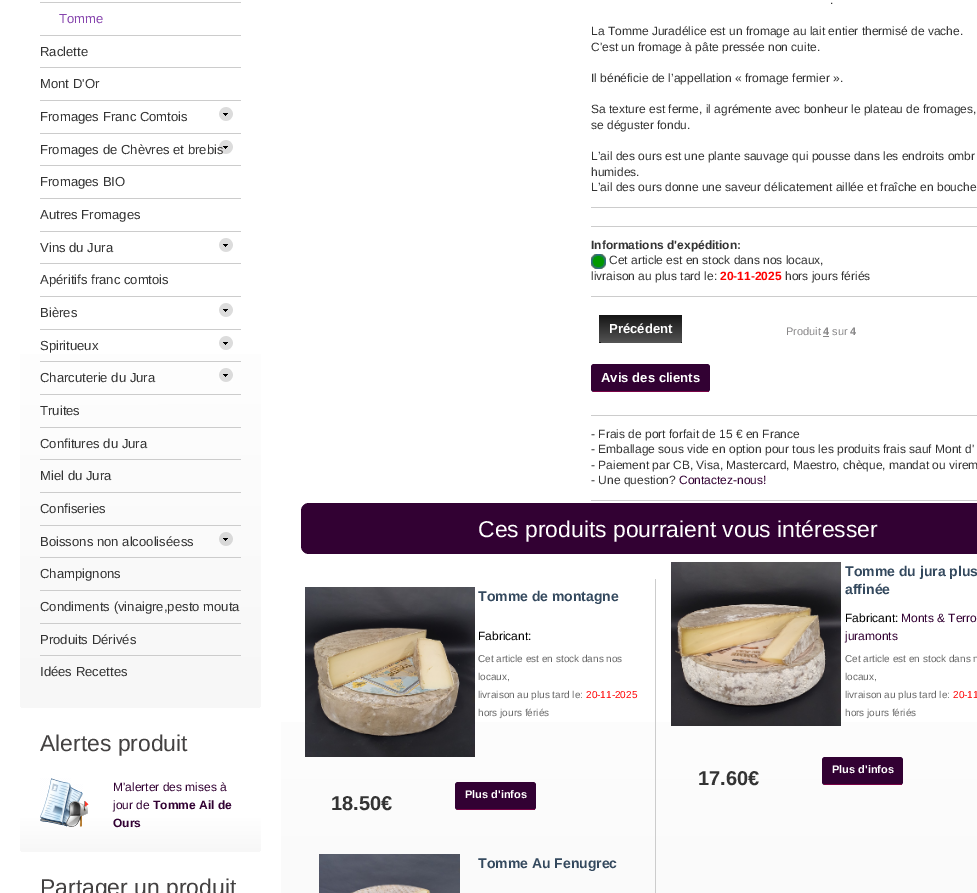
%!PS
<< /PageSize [977 893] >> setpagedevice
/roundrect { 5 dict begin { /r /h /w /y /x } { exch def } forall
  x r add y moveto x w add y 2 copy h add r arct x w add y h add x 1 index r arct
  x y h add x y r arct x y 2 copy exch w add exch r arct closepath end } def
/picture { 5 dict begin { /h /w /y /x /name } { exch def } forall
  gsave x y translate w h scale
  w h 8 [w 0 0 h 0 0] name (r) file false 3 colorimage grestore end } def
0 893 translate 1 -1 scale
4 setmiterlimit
1 setgray
0 0 977 893 rectfill
gsave newpath 20 -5 moveto 261 -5 lineto 261 703 lineto 261 706 259 708 256 708 curveto 25 708 lineto 22 708 20 706 20 703 curveto closepath clip newpath
<< /ShadingType 2 /ColorSpace /DeviceRGB /Coords [140 -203 141 708] /Extend [true true] /Function << /FunctionType 3 /Domain [0 1] /Functions [<< /FunctionType 2 /Domain [0 1] /C0 [1 1 1] /C1 [1 1 1] /N 1 >> << /FunctionType 2 /Domain [0 1] /C0 [1 1 1] /C1 [0.969 0.969 0.969] /N 1 >>] /Bounds [0.58] /Encode [0 1 0 1] >> >> shfill grestore
0.8 setgray
40 2 201 1 rectfill
/LiberationSans-Regular [13.1 0 0 -13.1 0 0] selectfont
0.525 0.267 0.678 setrgbcolor
59 23 moveto (Tomme) show
0.8 setgray
40 35 201 1 rectfill
0.2 setgray
40 56 moveto (Raclette) show
0.8 setgray
40 67 201 1 rectfill
0.2 setgray
40 88 moveto (Mont D'Or) show
0.8 setgray
40 100 201 1 rectfill
0.2 setgray
40 121 moveto (Fromages Franc Comtois) show
(img1.rgb) 219 107 14 14 picture
0.8 setgray
40 133 201 1 rectfill
0.2 setgray
40 154 moveto (Fromages de Chèvres et brebis) show
(img2.rgb) 219 140 14 14 picture
0.8 setgray
40 165 201 1 rectfill
0.2 setgray
40 186 moveto (Fromages BIO) show
0.8 setgray
40 198 201 1 rectfill
0.2 setgray
40 219 moveto (Autres Fromages) show
0.8 setgray
40 231 201 1 rectfill
0.2 setgray
40 252 moveto (Vins du Jura) show
(img1.rgb) 219 238 14 14 picture
0.8 setgray
40 263 201 1 rectfill
0.2 setgray
40 284 moveto (Apéritifs franc comtois) show
0.8 setgray
40 296 201 1 rectfill
0.2 setgray
40 317 moveto (Bières) show
(img1.rgb) 219 303 14 14 picture
0.8 setgray
40 329 201 1 rectfill
0.2 setgray
40 350 moveto (Spiritueux) show
(img3.rgb) 219 336 14 14 picture
0.8 setgray
40 361 201 1 rectfill
0.2 setgray
40 382 moveto (Charcuterie du Jura) show
(img4.rgb) 219 368 14 14 picture
0.8 setgray
40 394 201 1 rectfill
0.2 setgray
40 415 moveto (Truites) show
0.8 setgray
40 427 201 1 rectfill
0.2 setgray
40 448 moveto (Confitures du Jura) show
0.8 setgray
40 459 201 1 rectfill
0.2 setgray
40 480 moveto (Miel du Jura) show
0.8 setgray
40 492 201 1 rectfill
0.2 setgray
40 513 moveto (Confiseries) show
0.8 setgray
40 525 201 1 rectfill
0.2 setgray
40 546 moveto (Boissons non alcooliséess) show
(img5.rgb) 219 532 14 14 picture
0.8 setgray
40 557 201 1 rectfill
0.2 setgray
40 578 moveto (Champignons) show
0.8 setgray
40 590 201 1 rectfill
0.2 setgray
40 611 moveto (Condiments \(vinaigre,pesto mouta) show
0.8 setgray
40 623 201 1 rectfill
0.2 setgray
40 644 moveto (Produits Dérivés) show
0.8 setgray
40 655 201 1 rectfill
0.2 setgray
40 676 moveto (Idées Recettes) show
/LiberationSans-Regular [22.9 0 0 -22.9 0 0] selectfont
0.263 0.255 0.255 setrgbcolor
40 751 moveto (Alertes produit) show
gsave newpath 20 768 moveto 261 768 lineto 261 847 lineto 261 850 259 852 256 852 curveto 25 852 lineto 22 852 20 850 20 847 curveto closepath clip newpath
<< /ShadingType 2 /ColorSpace /DeviceRGB /Coords [141 768 141 852] /Extend [true true] /Function << /FunctionType 3 /Domain [0 1] /Functions [<< /FunctionType 2 /Domain [0 1] /C0 [1 1 1] /C1 [1 1 1] /N 1 >> << /FunctionType 2 /Domain [0 1] /C0 [1 1 1] /C1 [0.969 0.969 0.969] /N 1 >>] /Bounds [0.58] /Encode [0 1 0 1] >> >> shfill grestore
(img6.rgb) 40 778 49 49 picture
/LiberationSans-Regular [12 0 0 -12 0 0] selectfont
0.196 0.004 0.2 setrgbcolor
113 791 moveto (M'alerter des mises à) show
113 809 moveto (jour de) show
/LiberationSans-Bold [12 0 0 -12 0 0] selectfont
153 809 moveto (Tomme Ail de) show
113 827 moveto (Ours) show
/LiberationSans-Regular [22.9 0 0 -22.9 0 0] selectfont
0.263 0.255 0.255 setrgbcolor
40 895 moveto (Partager un produit) show
gsave newpath 281 722 moveto 977 722 lineto 977 893 lineto 281 893 lineto closepath clip newpath
<< /ShadingType 2 /ColorSpace /DeviceRGB /Coords [662 -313 663 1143] /Extend [true true] /Function << /FunctionType 3 /Domain [0 1] /Functions [<< /FunctionType 2 /Domain [0 1] /C0 [1 1 1] /C1 [1 1 1] /N 1 >> << /FunctionType 2 /Domain [0 1] /C0 [1 1 1] /C1 [0.969 0.969 0.969] /N 1 >>] /Bounds [0.58] /Encode [0 1 0 1] >> >> shfill grestore
0.8 setgray
591 207 386 1 rectfill
/LiberationSans-Regular [12 0 0 -12 0 0] selectfont
0.2 setgray
830 4 moveto (.) show
591 35 moveto (La Tomme Juradélice est un fromage au lait entier thermisé de vache.) show
591 51 moveto (C'est un fromage à pâte pressée non cuite.) show
591 82 moveto (Il bénéficie de l’appellation « fromage fermier ».) show
591 113 moveto (Sa texture est ferme, il agrémente avec bonheur le plateau de fromages,) show
591 129 moveto (se déguster fondu.) show
591 160 moveto (L’ail des ours est une plante sauvage qui pousse dans les endroits ombr) show
591 176 moveto (humides.) show
591 191 moveto (L’ail des ours donne une saveur délicatement aillée et fraîche en bouche) show
0.8 setgray
591 226 386 1 rectfill
591 296 386 1 rectfill
/LiberationSans-Bold [12 0 0 -12 0 0] selectfont
0.2 setgray
591 249 moveto (Informations d'expédition:) show
(img7.rgb) 591 254 15 15 picture
/LiberationSans-Regular [12 0 0 -12 0 0] selectfont
609 264 moveto (Cet article est en stock dans nos locaux,) show
591 280 moveto (livraison au plus tard le:) show
/LiberationSans-Bold [12 0 0 -12 0 0] selectfont
1 0 0 setrgbcolor
720 280 moveto (20-11-2025) show
/LiberationSans-Regular [12 0 0 -12 0 0] selectfont
0.2 setgray
785 280 moveto (hors jours fériés) show
gsave
599 315 83 28 3 roundrect clip newpath
gsave newpath 602 315 moveto 679 315 lineto 680.5 315 682 316.5 682 318 curveto 682 342 lineto 599 342 lineto 599 318 lineto 599 316.5 600.5 315 602 315 curveto closepath clip newpath
<< /ShadingType 2 /ColorSpace /DeviceRGB /Coords [641 315 641 342] /Extend [true true] /Function << /FunctionType 2 /Domain [0 1] /C0 [0.082 0.082 0.082] /C1 [0.322 0.322 0.322] /N 1 >> >> shfill grestore
gsave newpath 599 342 moveto 682 342 lineto 682 343 lineto 599 343 lineto closepath clip newpath
<< /ShadingType 2 /ColorSpace /DeviceRGB /Coords [641 342 641 369] /Extend [true true] /Function << /FunctionType 2 /Domain [0 1] /C0 [0.082 0.082 0.082] /C1 [0.322 0.322 0.322] /N 1 >> >> shfill grestore
grestore
0.329 setgray
601 342 80 1 rectfill
/LiberationSans-Bold [13.1 0 0 -13.1 0 0] selectfont
1 setgray
609 333 moveto (Précédent) show
/LiberationSans-Regular [11 0 0 -11 0 0] selectfont
0.533 0.529 0.533 setrgbcolor
786 335 moveto (Produit) show
/LiberationSans-Bold [11 0 0 -11 0 0] selectfont
823 335 moveto (4) show
823 336 6 1 rectfill
/LiberationSans-Regular [11 0 0 -11 0 0] selectfont
832 335 moveto (sur) show
/LiberationSans-Bold [11 0 0 -11 0 0] selectfont
850 335 moveto (4) show
0.196 0.004 0.2 setrgbcolor
591 364 119 28 3 roundrect fill
0.475 0.012 0.275 setrgbcolor
593 391 116 1 rectfill
/LiberationSans-Bold [13.1 0 0 -13.1 0 0] selectfont
1 setgray
601 382 moveto (Avis des clients) show
0.8 setgray
591 415 386 1 rectfill
591 500 386 1 rectfill
/LiberationSans-Regular [12 0 0 -12 0 0] selectfont
0.2 setgray
591 438 moveto (- Frais de port forfait de 15 € en France) show
591 453 moveto (- Emballage sous vide en option pour tous les produits frais sauf Mont d') show
591 469 moveto (- Paiement par CB, Visa, Mastercard, Maestro, chèque, mandat ou virem) show
591 484 moveto (- Une question?) show
0.196 0.004 0.2 setrgbcolor
679 484 moveto (Contactez-nous!) show
301 503 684 51 8 roundrect fill
/LiberationSans-Regular [22.9 0 0 -22.9 0 0] selectfont
1 setgray
478 537 moveto (Ces produits pourraient vous intéresser) show
0.8 setgray
655 579 1 314 rectfill
(img8.rgb) 305 587 170 170 picture
/LiberationSans-Bold [14 0 0 -14 0 0] selectfont
0.204 0.286 0.369 setrgbcolor
478 601 moveto (Tomme de montagne) show
/LiberationSans-Regular [12 0 0 -12 0 0] selectfont
0 setgray
478 640 moveto (Fabricant:) show
/LiberationSans-Regular [10 0 0 -10 0 0] selectfont
0.4 setgray
478 662 moveto (Cet article est en stock dans nos) show
478 680 moveto (locaux,) show
478 698 moveto (livraison au plus tard le:) show
1 0 0 setrgbcolor
586 698 moveto (20-11-2025) show
0.4 setgray
478 716 moveto (hors jours fériés) show
0.196 0.004 0.2 setrgbcolor
455 782 81 28 3 roundrect fill
0.475 0.012 0.275 setrgbcolor
457 809 78 1 rectfill
/LiberationSans-Bold [11 0 0 -11 0 0] selectfont
1 setgray
465 798 moveto (Plus d'infos) show
/LiberationSans-Bold [20 0 0 -20 0 0] selectfont
0.2 setgray
331 810 moveto (18.50€) show
(img9.rgb) 671 562 170 164 picture
/LiberationSans-Bold [14 0 0 -14 0 0] selectfont
0.204 0.286 0.369 setrgbcolor
845 576 moveto (Tomme du jura plus) show
845 594 moveto (affinée) show
/LiberationSans-Regular [12 0 0 -12 0 0] selectfont
0 setgray
845 622 moveto (Fabricant:) show
0.196 0.004 0.2 setrgbcolor
901 622 moveto (Monts & Terro) show
845 640 moveto (juramonts) show
/LiberationSans-Regular [10 0 0 -10 0 0] selectfont
0.4 setgray
845 662 moveto (Cet article est en stock dans n) show
845 680 moveto (locaux,) show
845 698 moveto (livraison au plus tard le:) show
1 0 0 setrgbcolor
953 698 moveto (20-11) show
0.4 setgray
845 716 moveto (hors jours fériés) show
0.196 0.004 0.2 setrgbcolor
822 757 81 28 3 roundrect fill
0.475 0.012 0.275 setrgbcolor
824 784 78 1 rectfill
/LiberationSans-Bold [11 0 0 -11 0 0] selectfont
1 setgray
832 773 moveto (Plus d'infos) show
/LiberationSans-Bold [20 0 0 -20 0 0] selectfont
0.2 setgray
698 785 moveto (17.60€) show
(img10.rgb) 319 854 141 39 picture
/LiberationSans-Bold [14 0 0 -14 0 0] selectfont
0.204 0.286 0.369 setrgbcolor
478 868 moveto (Tomme Au Fenugrec) show
showpage
